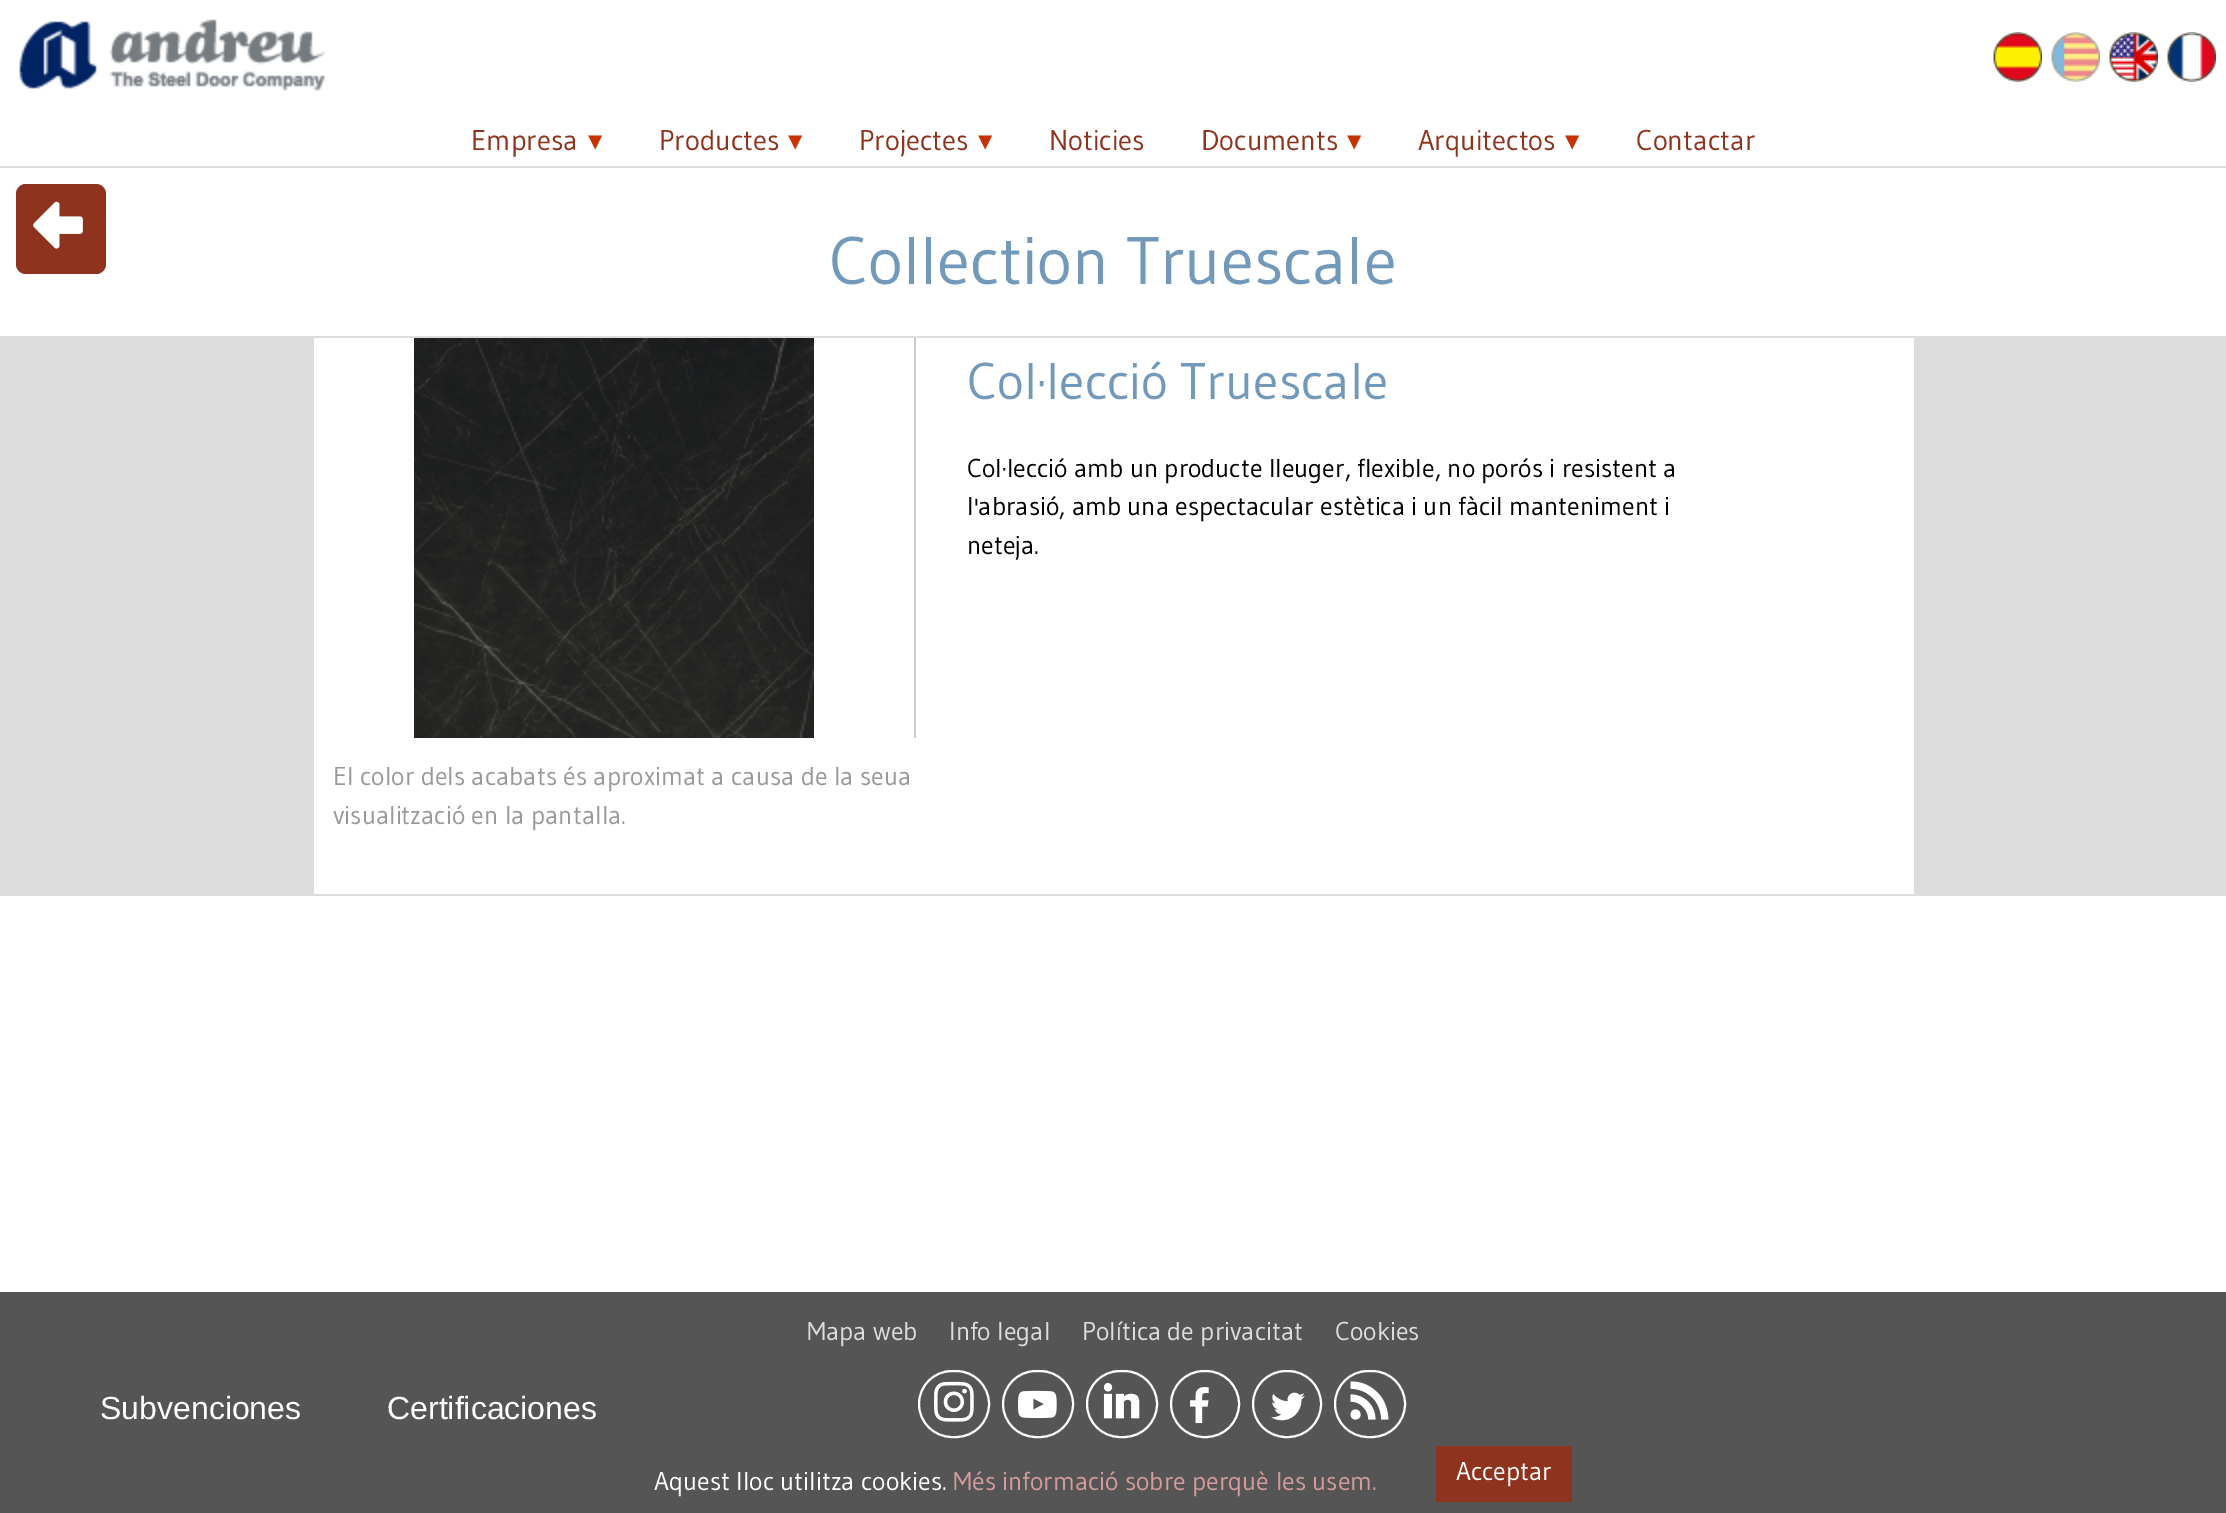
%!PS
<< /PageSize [2226 1513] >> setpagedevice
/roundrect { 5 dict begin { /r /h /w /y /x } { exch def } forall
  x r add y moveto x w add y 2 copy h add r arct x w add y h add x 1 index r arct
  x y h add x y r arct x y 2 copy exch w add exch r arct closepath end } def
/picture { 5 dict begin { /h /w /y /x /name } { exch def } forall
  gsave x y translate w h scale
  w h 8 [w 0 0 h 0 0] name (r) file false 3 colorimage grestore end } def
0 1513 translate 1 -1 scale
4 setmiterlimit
1 setgray
0 0 2226 1513 rectfill
(img1.rgb) 19 19 307 72 picture
(img2.rgb) 1993 32 49 50 picture
(img3.rgb) 2051 32 49 50 picture
(img4.rgb) 2109 32 49 50 picture
(img5.rgb) 2167 32 49 50 picture
0.867 setgray
0 166 2226 2 rectfill
/Gudea-Regular [28.5 0 0 -28.5 0 0] selectfont
0.557 0.2 0.114 setrgbcolor
471 150 moveto (Empresa) show
/DejaVuSans-Regular [28.5 0 0 -28.5 0 0] selectfont
0.776 0.196 0 setrgbcolor
588 150 moveto (▾) show
/Gudea-Regular [28.5 0 0 -28.5 0 0] selectfont
0.557 0.2 0.114 setrgbcolor
659 150 moveto (Productes) show
/DejaVuSans-Regular [28.5 0 0 -28.5 0 0] selectfont
0.776 0.196 0 setrgbcolor
788 150 moveto (▾) show
/Gudea-Regular [28.5 0 0 -28.5 0 0] selectfont
0.557 0.2 0.114 setrgbcolor
859 150 moveto (Projectes) show
/DejaVuSans-Regular [28.5 0 0 -28.5 0 0] selectfont
0.776 0.196 0 setrgbcolor
978 150 moveto (▾) show
/Gudea-Regular [28.5 0 0 -28.5 0 0] selectfont
0.557 0.2 0.114 setrgbcolor
1049 150 moveto (Noticies) show
1201 150 moveto (Documents) show
/DejaVuSans-Regular [28.5 0 0 -28.5 0 0] selectfont
0.776 0.196 0 setrgbcolor
1347 150 moveto (▾) show
/Gudea-Regular [28.5 0 0 -28.5 0 0] selectfont
0.557 0.2 0.114 setrgbcolor
1418 150 moveto (Arquitectos) show
/DejaVuSans-Regular [28.5 0 0 -28.5 0 0] selectfont
0.776 0.196 0 setrgbcolor
1565 150 moveto (▾) show
/Gudea-Regular [28.5 0 0 -28.5 0 0] selectfont
0.557 0.2 0.114 setrgbcolor
1636 150 moveto (Contactar) show
16 184 90 90 10 roundrect fill
(img6.rgb) 33 201 50 48 picture
/Gudea-Regular [67 0 0 -67 0 0] selectfont
0.447 0.6 0.729 setrgbcolor
829 284 moveto (Collection Truescale) show
0.867 setgray
0 336 2226 560 rectfill
1 setgray
314 338 1600 556 rectfill
0.8 setgray
914 338 2 400 rectfill
/Gudea-Regular [51.5 0 0 -51.5 0 0] selectfont
0.447 0.6 0.729 setrgbcolor
967 399 moveto (Col·lecció Truescale) show
/Gudea-Regular [25.8 0 0 -25.8 0 0] selectfont
0 setgray
967 477 moveto (Col·lecció amb un producte lleuger, flexible, no porós i resistent a) show
967 515 moveto -0.1 0 32 (l'abrasió, amb una espectacular estètica i un fàcil manteniment i) widthshow
967 554 moveto (neteja.) show
(img7.rgb) 414 338 400 400 picture
0.6 setgray
333 785 moveto (El color dels acabats és aproximat a causa de la seua) show
333 824 moveto (visualització en la pantalla.) show
0.333 setgray
0 1292 2226 221 rectfill
0.867 setgray
807 1340 moveto (Mapa web) show
949 1340 moveto (Info legal) show
1082 1340 moveto (Política de privacitat) show
1335 1340 moveto (Cookies) show
/LiberationSans-Regular [32 0 0 -32 0 0] selectfont
1 setgray
100 1419 moveto (Subvenciones) show
387 1419 moveto (Certificaciones) show
2 setlinewidth
919 1371 70 66 33 roundrect stroke
(img8.rgb) 934 1381 40 41 picture
1003 1371 70 66 33 roundrect stroke
(img9.rgb) 1018 1390 39 29 picture
1087 1371 70 66 33 roundrect stroke
(img10.rgb) 1103 1382 37 37 picture
1171 1371 68 66 33 roundrect stroke
(img11.rgb) 1190 1387 19 37 picture
1253 1371 68 66 33 roundrect stroke
(img12.rgb) 1271 1392 34 29 picture
1335 1371 70 66 33 roundrect stroke
(img13.rgb) 1350 1381 39 39 picture
/Gudea-Regular [25.8 0 0 -25.8 0 0] selectfont
654 1490 moveto (Aquest lloc utilitza cookies.) show
0.827 0.612 0.612 setrgbcolor
953 1490 moveto (Més informació sobre perquè les usem.) show
0.557 0.2 0.114 setrgbcolor
1436 1446 136 56 rectfill
1 setgray
1456 1480 moveto (Acceptar) show
showpage
